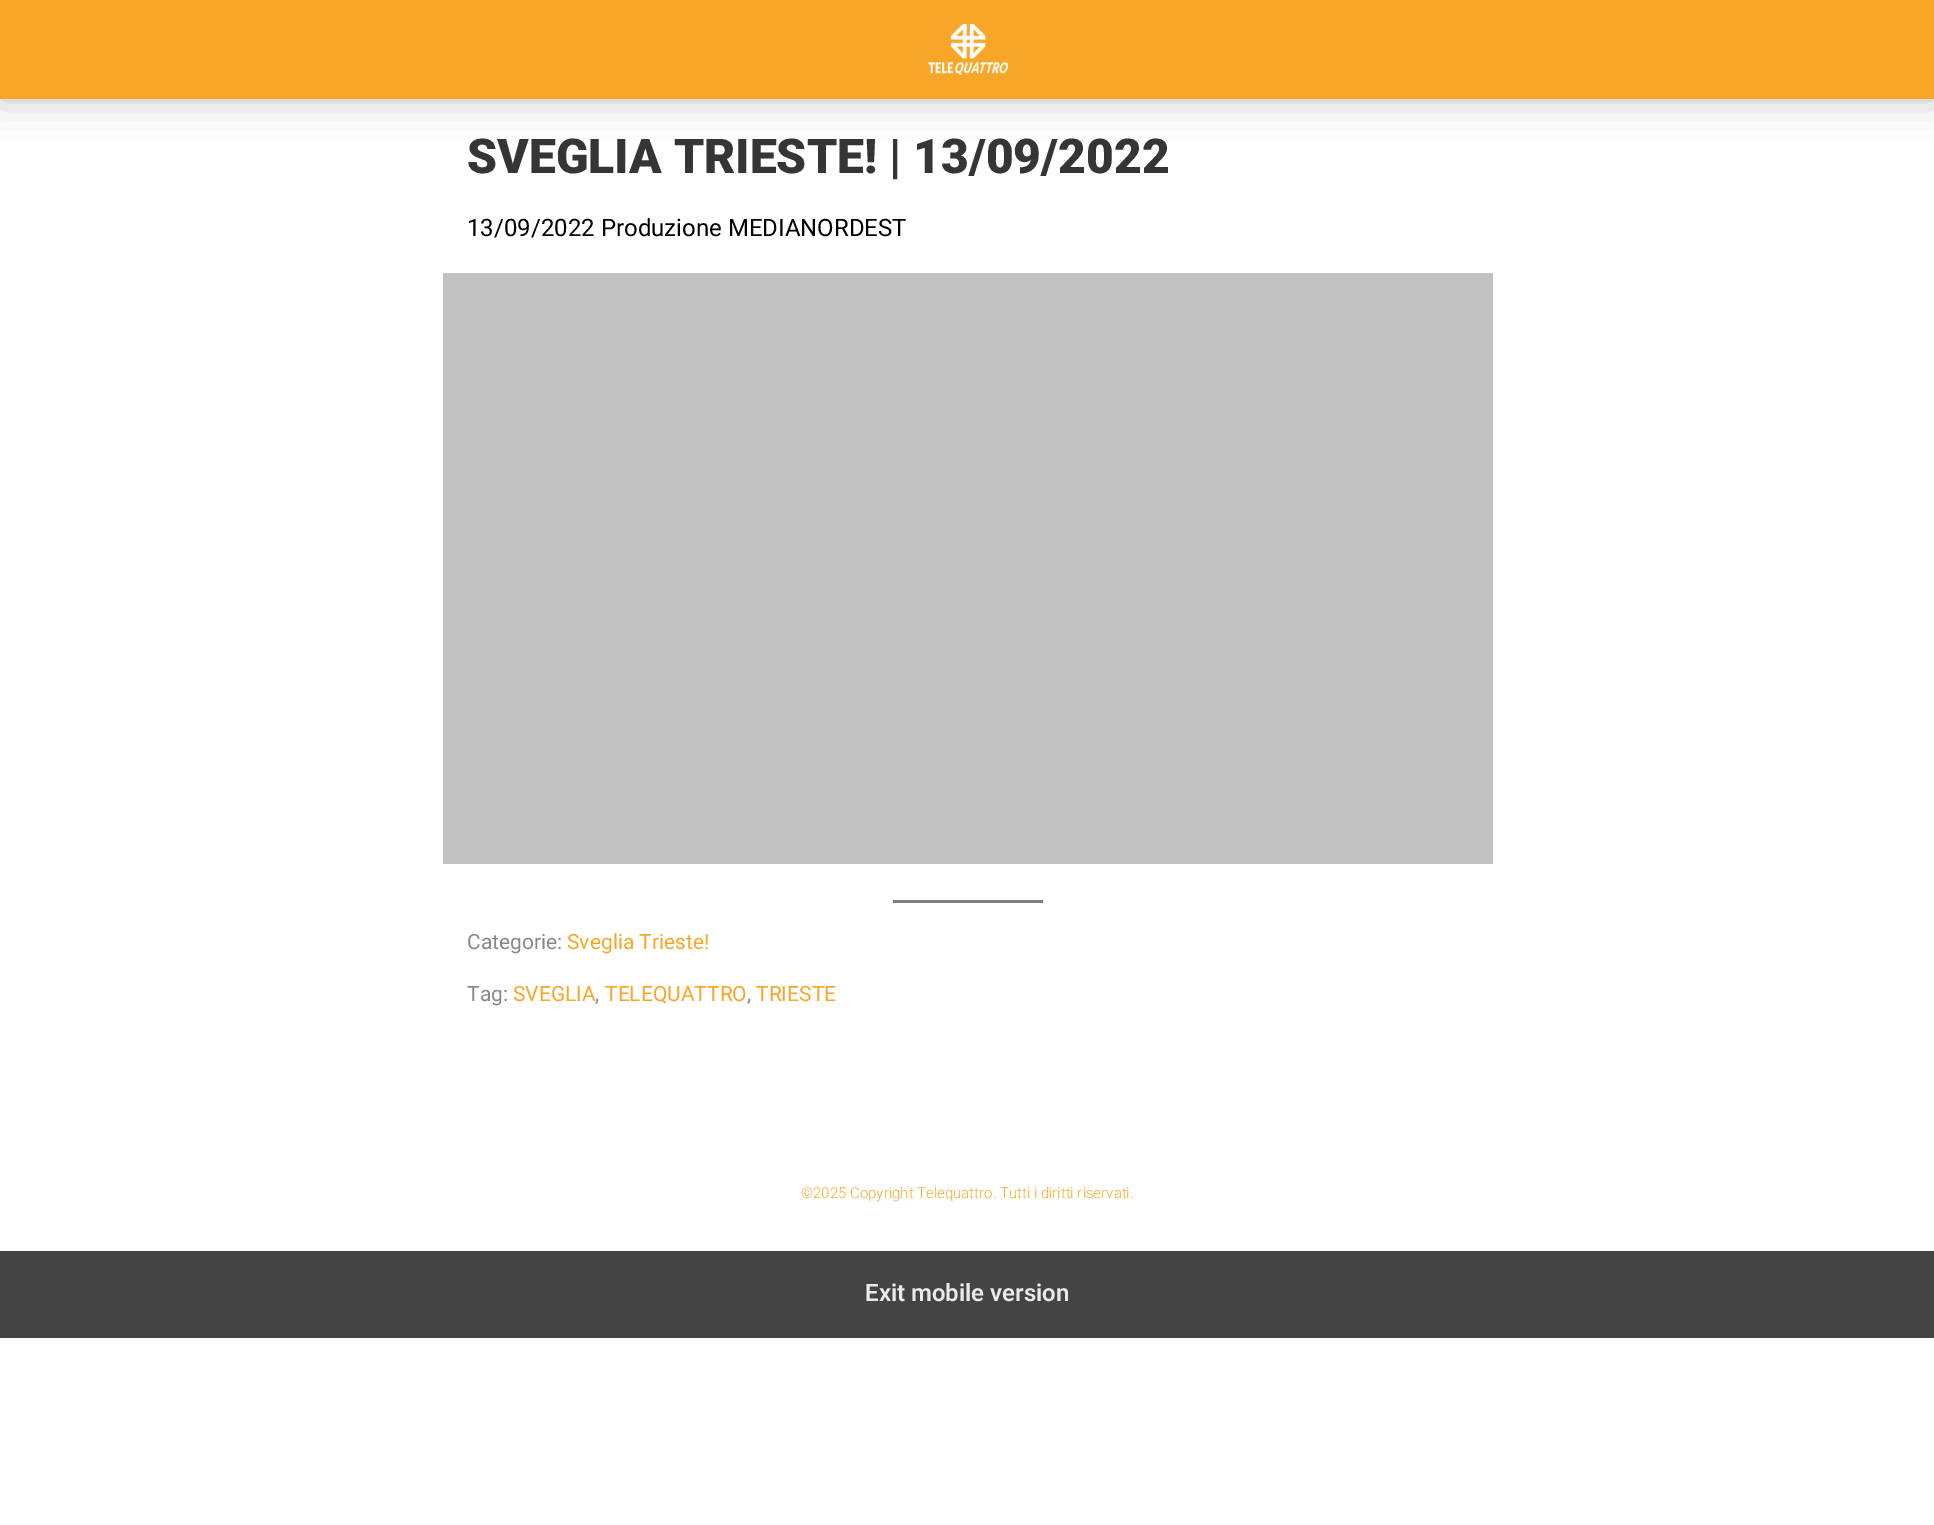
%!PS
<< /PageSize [1934 1525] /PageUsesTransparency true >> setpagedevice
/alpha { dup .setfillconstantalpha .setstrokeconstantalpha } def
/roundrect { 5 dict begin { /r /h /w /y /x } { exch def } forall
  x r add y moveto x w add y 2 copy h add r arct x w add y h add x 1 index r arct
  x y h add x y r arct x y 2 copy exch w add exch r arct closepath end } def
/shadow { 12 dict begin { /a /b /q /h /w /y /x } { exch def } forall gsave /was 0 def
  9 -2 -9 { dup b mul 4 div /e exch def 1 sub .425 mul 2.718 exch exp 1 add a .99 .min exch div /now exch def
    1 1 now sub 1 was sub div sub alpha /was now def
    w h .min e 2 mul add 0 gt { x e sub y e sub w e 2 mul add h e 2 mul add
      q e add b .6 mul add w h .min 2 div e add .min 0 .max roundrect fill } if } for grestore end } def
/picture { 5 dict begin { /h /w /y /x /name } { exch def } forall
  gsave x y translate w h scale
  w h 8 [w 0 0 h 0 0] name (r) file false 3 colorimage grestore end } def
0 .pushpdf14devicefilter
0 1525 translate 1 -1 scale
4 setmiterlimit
1 setgray
0 0 1934 1525 rectfill
0 setgray
0 0 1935 99 0 18 0.25 shadow
0.973 0.651 0.157 setrgbcolor
0 0 1934 99 rectfill
(img1.rgb) 928 24 80 51 picture
/Roboto-Black [48 0 0 -48 0 0] selectfont
0.208 setgray
467 173 moveto (SVEGLIA TRIESTE! | 13/09/2022) show
/Roboto-Regular [24 0 0 -24 0 0] selectfont
0 setgray
467 236 moveto (13/09/2022 Produzione MEDIANORDEST) show
0.761 setgray
443 273 1050 591 rectfill
0.502 setgray
893 900 150 3 rectfill
/Roboto-Regular [21 0 0 -21 0 0] selectfont
0.533 setgray
467 949 moveto (Categorie:) show
0.973 0.651 0.157 setrgbcolor
567 949 moveto (Sveglia Trieste!) show
0.533 setgray
467 1001 moveto (Tag:) show
0.973 0.651 0.157 setrgbcolor
513 1001 moveto (SVEGLIA) show
0.533 setgray
595 1001 moveto (,) show
0.973 0.651 0.157 setrgbcolor
605 1001 moveto (TELEQUATTRO) show
0.533 setgray
747 1001 moveto (,) show
0.973 0.651 0.157 setrgbcolor
756 1001 moveto (TRIESTE) show
/Roboto-Light [15 0 0 -15 0 0] selectfont
801 1198 moveto (©2025 Copyright Telequattro. Tutti i diritti riservati.) show
0.267 setgray
0 1251 1934 87 rectfill
/Roboto-SemiBold [24 0 0 -24 0 0] selectfont
0.918 setgray
865 1301 moveto (Exit mobile version) show
.poppdf14devicefilter showpage
